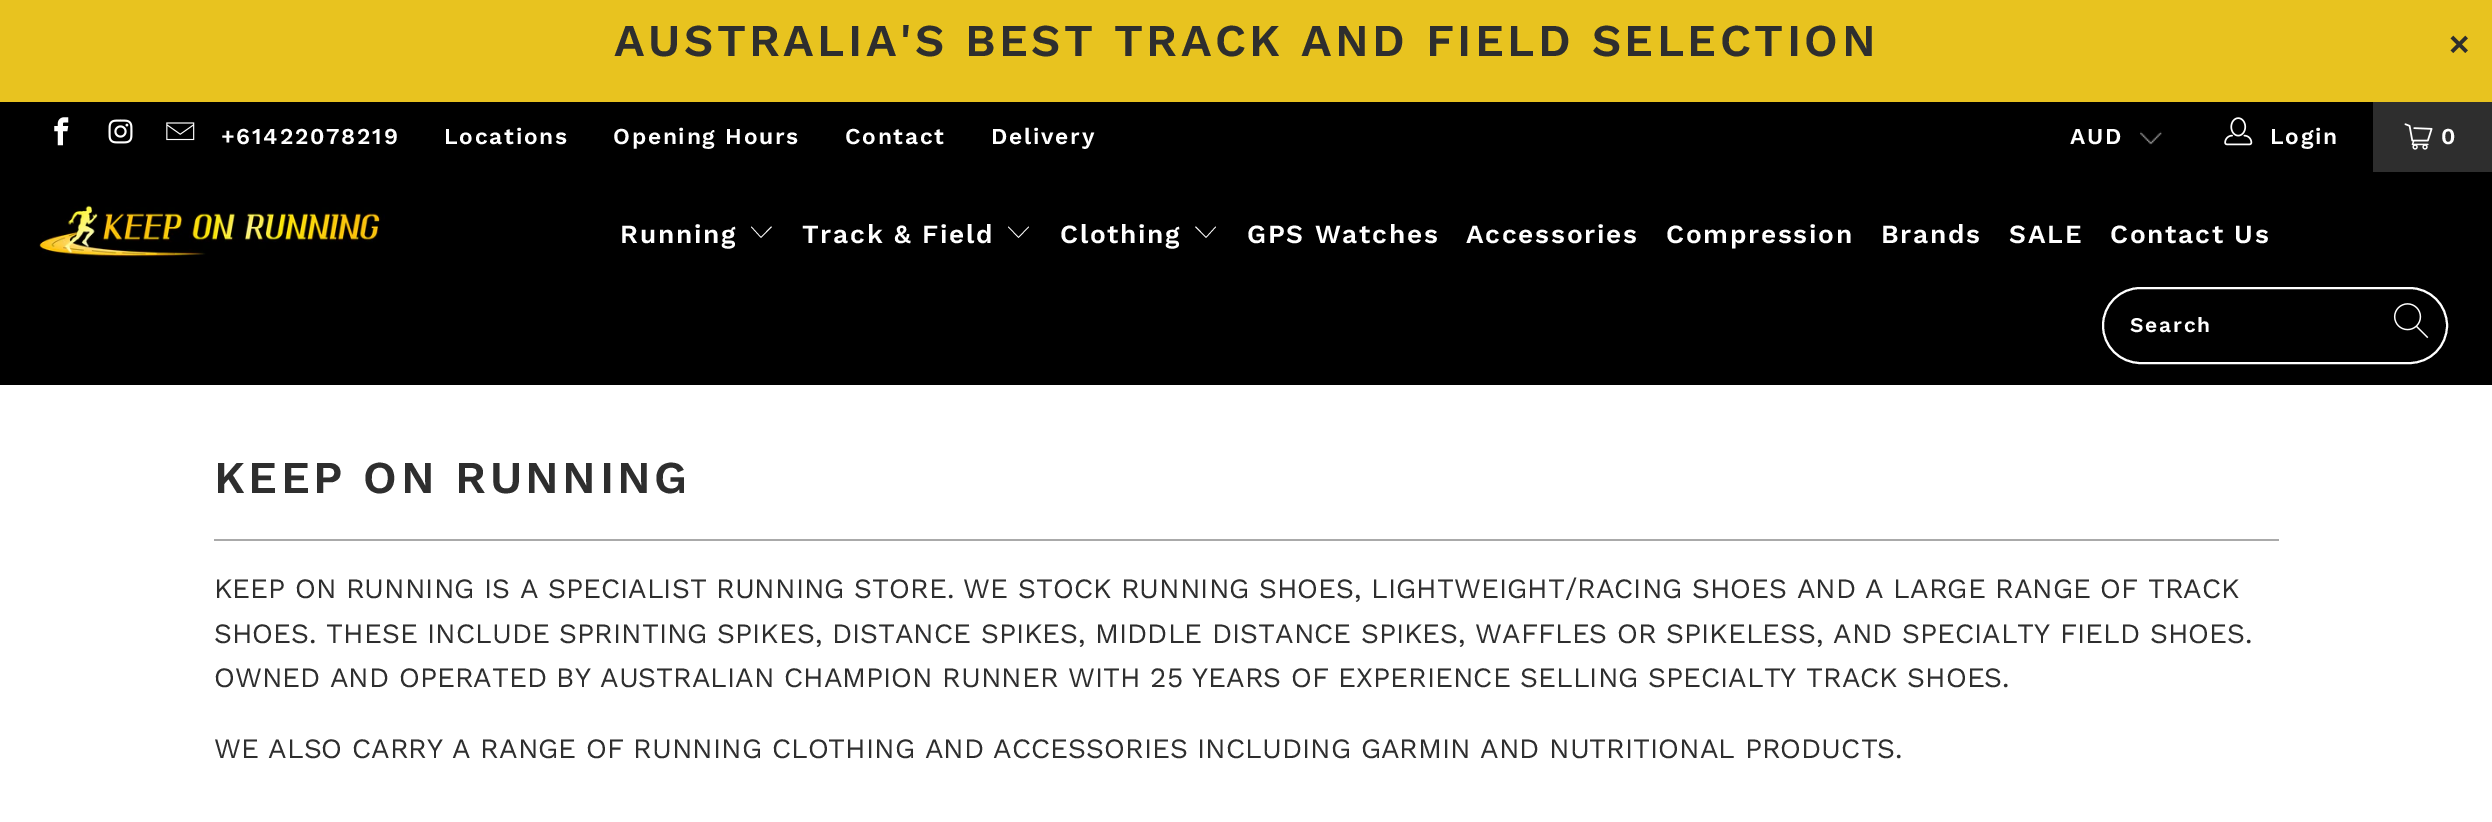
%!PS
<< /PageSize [2492 822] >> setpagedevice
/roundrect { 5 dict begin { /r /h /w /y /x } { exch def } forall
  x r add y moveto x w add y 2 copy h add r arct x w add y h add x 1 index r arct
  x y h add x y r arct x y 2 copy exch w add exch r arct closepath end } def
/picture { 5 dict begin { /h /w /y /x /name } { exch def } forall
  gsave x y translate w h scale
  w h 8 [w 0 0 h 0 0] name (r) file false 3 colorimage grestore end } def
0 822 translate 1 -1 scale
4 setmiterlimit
1 setgray
0 0 2492 822 rectfill
0.91 0.765 0.122 setrgbcolor
0 0 2492 102 rectfill
/WorkSans-SemiBold [45.5 0 0 -45.5 0 0] selectfont
0.18 setgray
614 56 moveto 3.5 0 (AUSTRALIA'S BEST TRACK AND FIELD SELECTION) ashow
/LiberationSans-Bold [35 0 0 -35 0 0] selectfont
2449 56 moveto 3.5 0 (×) ashow
0 setgray
0 102 2373 70 rectfill
(img1.rgb) 54 117 15 29 picture
(img2.rgb) 108 119 25 25 picture
(img3.rgb) 166 122 29 19 picture
/WorkSans-SemiBold [22.75 0 0 -22.75 0 0] selectfont
1 setgray
221 144 moveto 1.75 0 (+61422078219) ashow
444 144 moveto 1.75 0 (Locations) ashow
613 144 moveto 1.75 0 (Opening Hours) ashow
845 144 moveto 1.75 0 (Contact) ashow
991 144 moveto 1.75 0 (Delivery) ashow
(img4.rgb) 2140 131 22 14 picture
2070 144 moveto 1.75 0 (AUD) ashow
(img5.rgb) 2224 117 29 29 picture
2270 144 moveto 1.75 0 (Login) ashow
0.18 setgray
2373 102 119 70 rectfill
(img6.rgb) 2404 123 29 27 picture
1 setgray
2441 144 moveto 1.75 0 (0) ashow
0 setgray
0 172 2492 213 rectfill
(img7.rgb) 39 205 346 52 picture
/WorkSans-SemiBold [26.25 0 0 -26.25 0 0] selectfont
1 setgray
620 243 moveto 1.75 0 (Running) ashow
newpath 761 238 moveto 751 227 lineto 751.5 226.5 lineto 761 237 lineto 771 226.5 lineto 772 227 lineto closepath fill
802 243 moveto 1.75 0 (Track & Field) ashow
newpath 1018.5 238 moveto 1008 227 lineto 1008.5 226.5 lineto 1018.5 237 lineto 1028.5 226.5 lineto 1029 227 lineto closepath fill
1060 243 moveto 1.75 0 (Clothing) ashow
newpath 1206 238 moveto 1195 227 lineto 1196 226.5 lineto 1206 237 lineto 1215.5 226.5 lineto 1216 227 lineto closepath fill
1247 243 moveto 1.75 0 (GPS Watches) ashow
1466 243 moveto 1.75 0 (Accessories) ashow
1666 243 moveto 1.75 0 (Compression) ashow
1881 243 moveto 1.75 0 (Brands) ashow
2009 243 moveto 1.75 0 (SALE) ashow
2110 243 moveto 1.75 0 (Contact Us) ashow
2 setlinewidth
2103 288 344 75 37.5 roundrect stroke
/WorkSans-SemiBold [21 0 0 -21 0 0] selectfont
2130 332 moveto 1.75 0 (Search) ashow
(img8.rgb) 2393 303 36 36 picture
/WorkSans-SemiBold [45.5 0 0 -45.5 0 0] selectfont
0.18 setgray
214 493 moveto 3.5 0 (KEEP ON RUNNING) ashow
0.667 setgray
214 539 2065 2 rectfill
/WorkSans-Regular [28 0 0 -28 0 0] selectfont
0.18 setgray
214 598 moveto (KEEP ON RUNNING IS A SPECIALIST RUNNING STORE. WE STOCK RUNNING SHOES, LIGHTWEIGHT/RACING SHOES AND A LARGE RANGE OF TRACK) show
214 643 moveto (SHOES. THESE INCLUDE SPRINTING SPIKES, DISTANCE SPIKES, MIDDLE DISTANCE SPIKES, WAFFLES OR SPIKELESS, AND SPECIALTY FIELD SHOES.) show
214 687 moveto (OWNED AND OPERATED BY AUSTRALIAN CHAMPION RUNNER WITH 25 YEARS OF EXPERIENCE SELLING SPECIALTY TRACK SHOES.) show
214 758 moveto (WE ALSO CARRY A RANGE OF RUNNING CLOTHING AND ACCESSORIES INCLUDING GARMIN AND NUTRITIONAL PRODUCTS.) show
showpage
